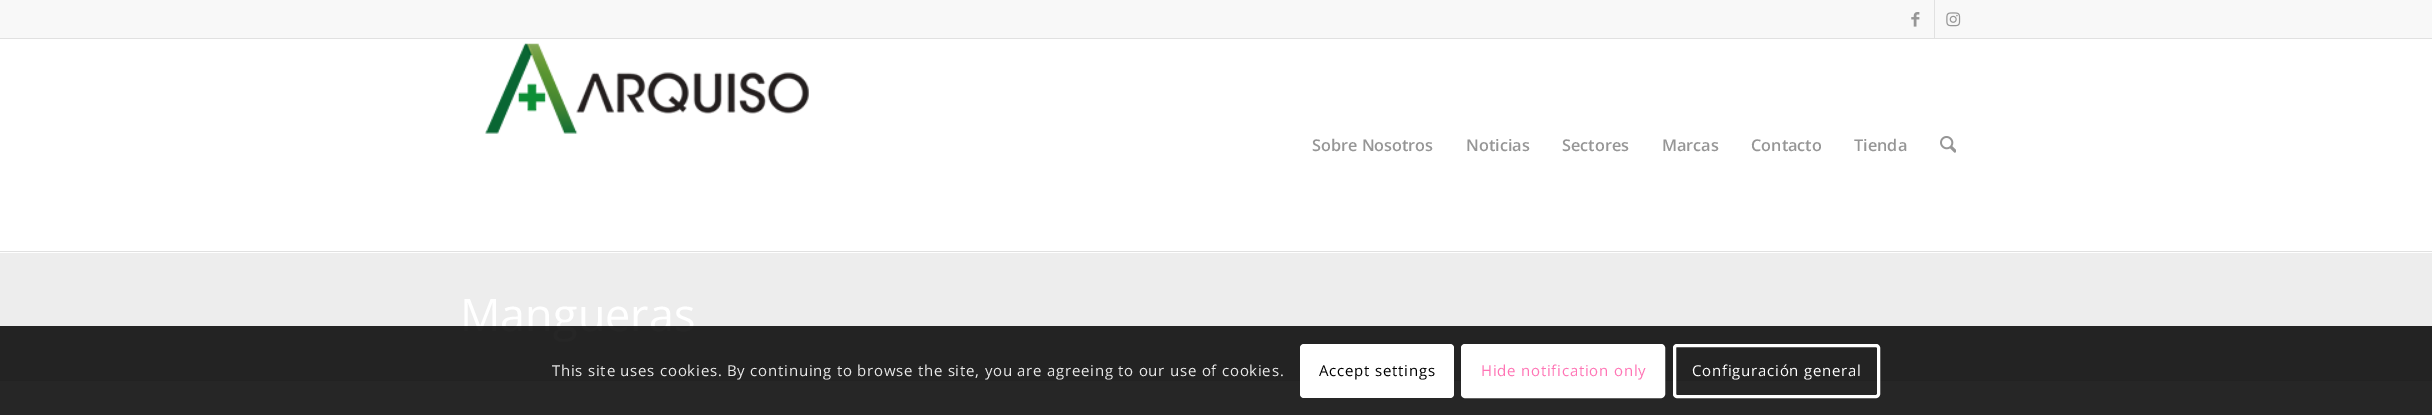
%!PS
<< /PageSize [2432 415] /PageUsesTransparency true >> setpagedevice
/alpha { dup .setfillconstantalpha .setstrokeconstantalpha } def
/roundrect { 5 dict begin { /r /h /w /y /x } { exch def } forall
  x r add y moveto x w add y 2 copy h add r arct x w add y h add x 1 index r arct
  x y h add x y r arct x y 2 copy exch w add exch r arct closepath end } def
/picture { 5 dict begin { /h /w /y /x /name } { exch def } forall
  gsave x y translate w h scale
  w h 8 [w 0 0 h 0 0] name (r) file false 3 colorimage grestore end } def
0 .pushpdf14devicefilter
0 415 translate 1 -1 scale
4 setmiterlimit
1 setgray
0 0 2432 415 rectfill
0.973 setgray
0 0 2432 38 rectfill
0.882 setgray
0 38 2432 1 rectfill
1934 0 1 38 rectfill
(img1.rgb) 1911 12 9 15 picture
(img2.rgb) 1946 12 15 15 picture
0 251 2432 1 rectfill
(img3.rgb) 485 43 324 91 picture
/OpenSans-SemiBold [16.25 0 0 -16.25 0 0] selectfont
0.588 setgray
1312 151 moveto (Sobre Nosotros) show
1466 151 moveto (Noticias) show
1562 151 moveto (Sectores) show
1662 151 moveto (Marcas) show
1751 151 moveto (Contacto) show
1854 151 moveto (Tienda) show
(img4.rgb) 1940 136 16 17 picture
0.929 setgray
0 253 2432 127 rectfill
/OpenSans-Regular [45 0 0 -45 0 0] selectfont
1 setgray
460 331 moveto (Mangueras) show
0.882 setgray
0 380 2432 1 rectfill
0.85 alpha
0 setgray
0 326 2432 89 rectfill
/OpenSans-Regular [15 0 0 -15 0 0] selectfont
1 alpha
0.914 setgray
552 376 moveto 0.75 0 (This site uses cookies. By continuing to browse the site, you are agreeing to our use of cookies.) ashow
1 setgray
1300 344 154 54 4 roundrect fill
0 setgray
1319 376 moveto 0.75 0 (Accept settings) ashow
1 setgray
1462.5 345.5 201 51 2.5 roundrect gsave fill grestore
3 setlinewidth
stroke
1 0.459 0.71 setrgbcolor
1481 376 moveto 0.75 0 (Hide notification only) ashow
1 setgray
1674.5 345.5 204 51 2.5 roundrect stroke
1692 376 moveto 0.75 0 (Configuración general) ashow
.poppdf14devicefilter showpage
